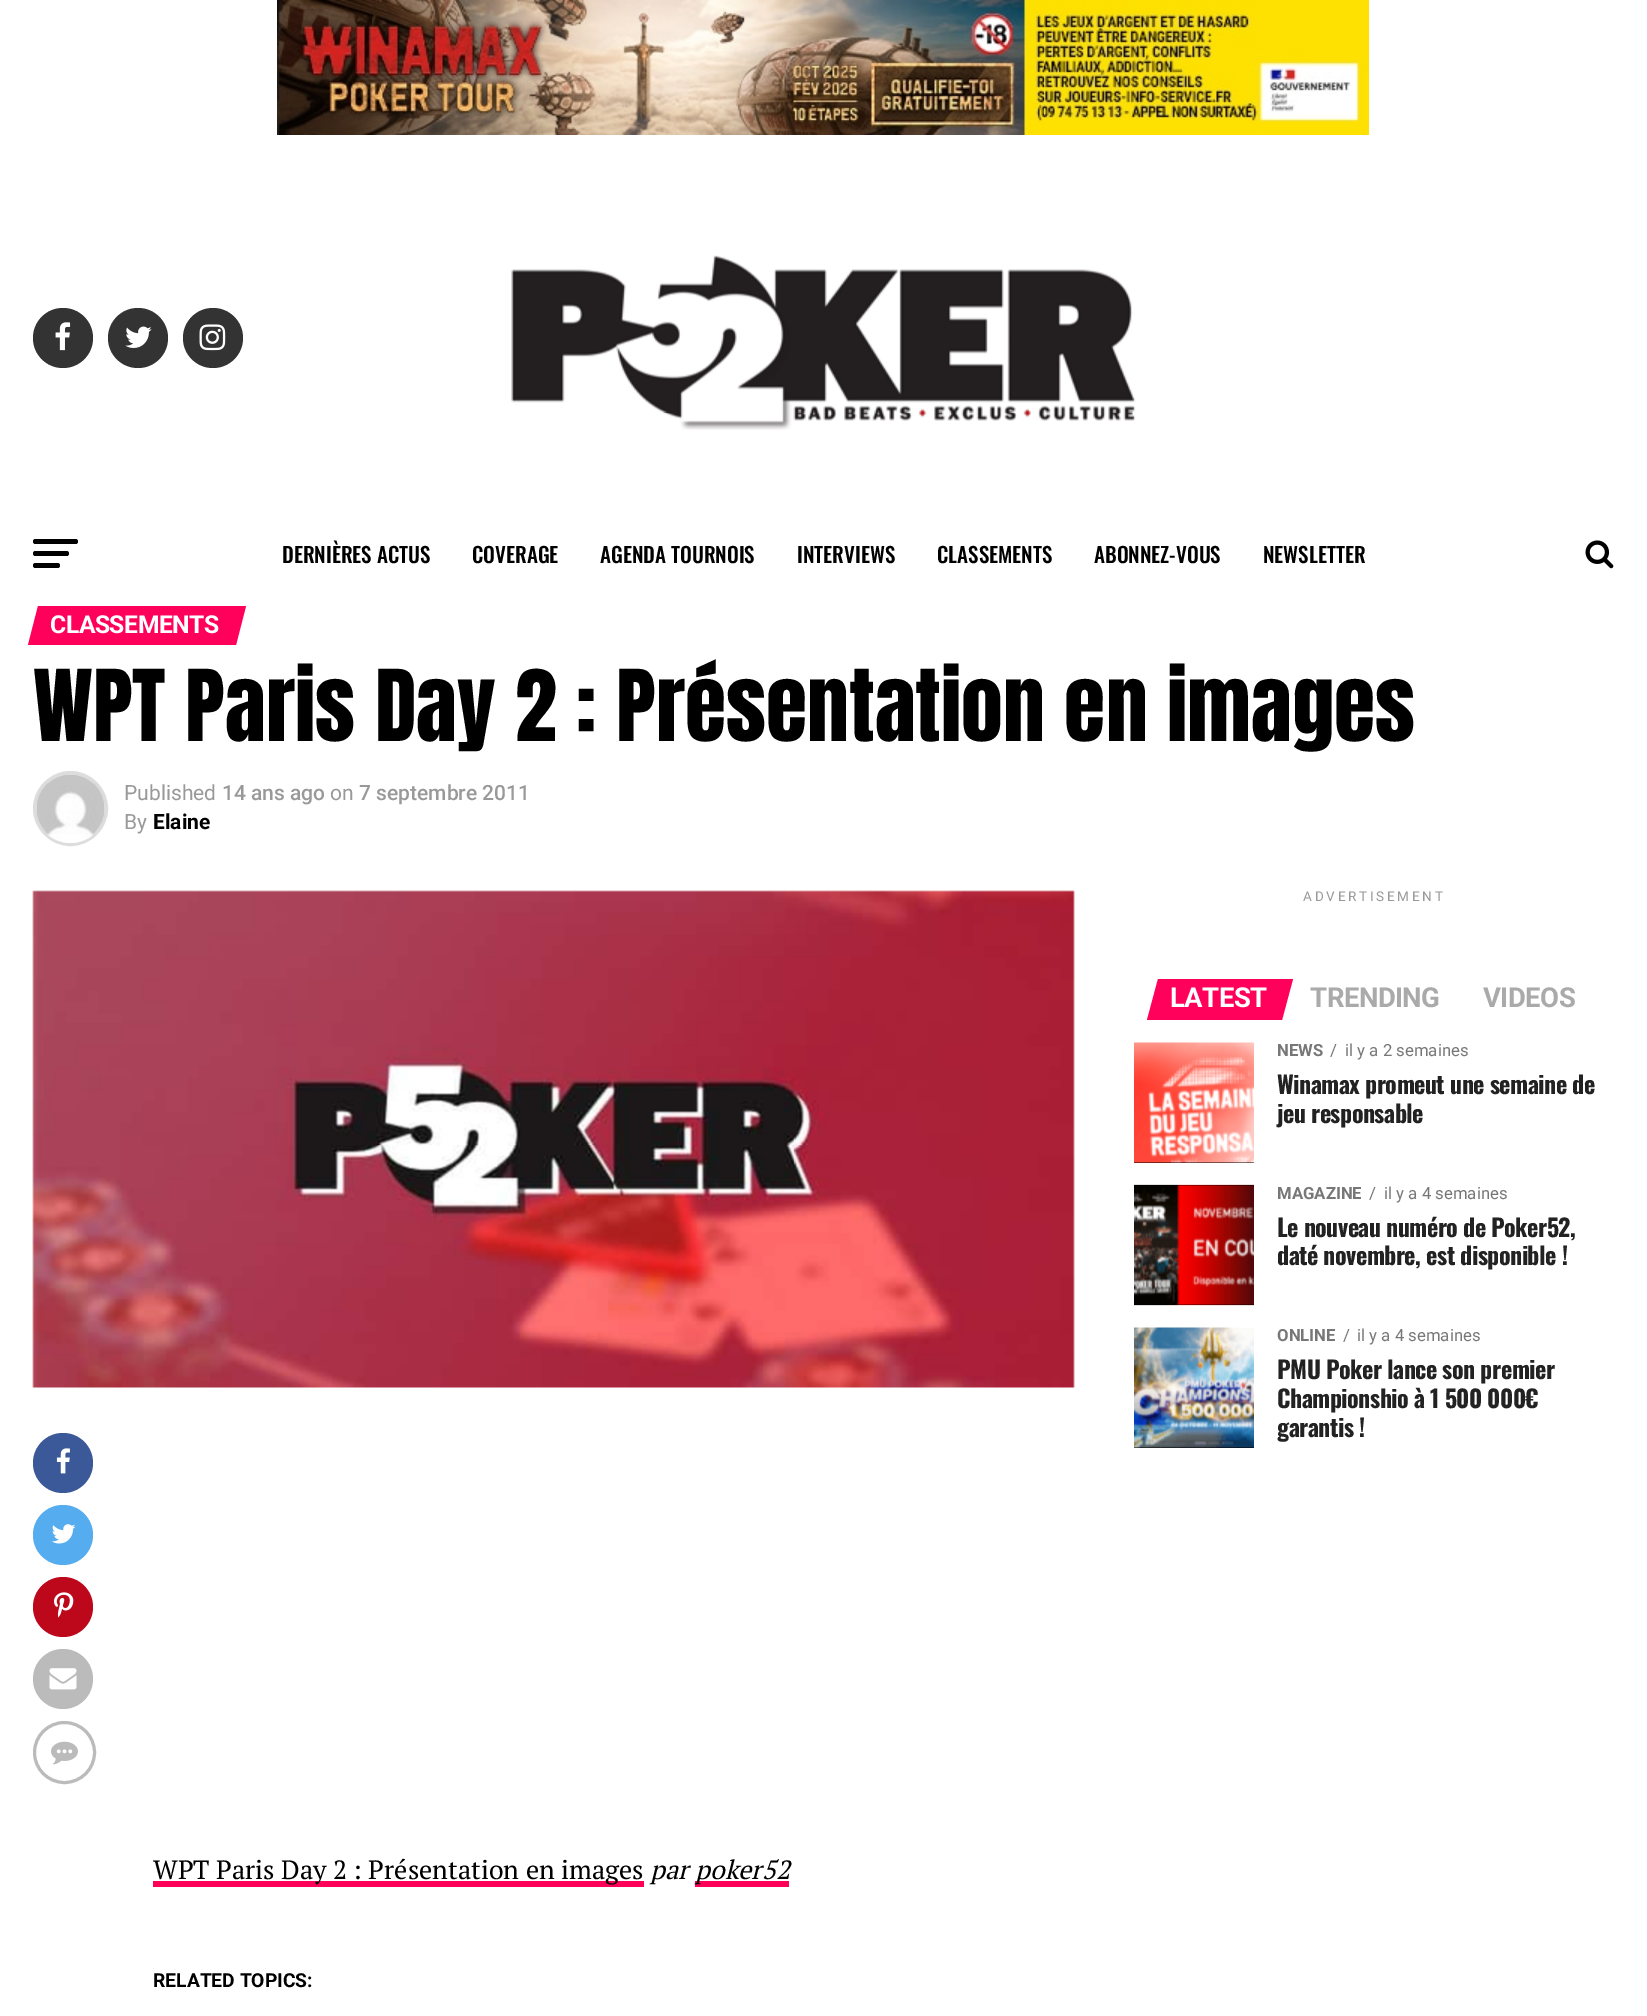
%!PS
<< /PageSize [1647 2016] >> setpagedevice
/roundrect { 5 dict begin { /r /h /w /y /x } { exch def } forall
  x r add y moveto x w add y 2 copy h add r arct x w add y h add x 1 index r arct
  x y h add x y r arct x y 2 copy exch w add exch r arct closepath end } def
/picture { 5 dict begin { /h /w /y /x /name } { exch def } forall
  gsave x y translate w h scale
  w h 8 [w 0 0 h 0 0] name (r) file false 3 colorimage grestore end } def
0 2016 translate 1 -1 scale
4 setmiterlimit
1 setgray
0 0 1647 2016 rectfill
(img1.rgb) 277 0 1092 135 picture
0.2 setgray
newpath 63 338 30 0 360 arc closepath fill
(img2.rgb) 55 322 16 29 picture
newpath 138 338 30 0 360 arc closepath fill
(img3.rgb) 125 326 27 22 picture
newpath 213 338 30 0 360 arc closepath fill
(img4.rgb) 199 324 27 27 picture
(img5.rgb) 511 255 625 175 picture
0 setgray
33 539 45 5 2.5 roundrect fill
33 551 36 5 2.5 roundrect fill
33 563 27 5 2.5 roundrect fill
/Oswald-Medium [21 0 0 -21 0 0] selectfont
282 563 moveto (DERNIÈRES ACTUS) show
472 563 moveto (COVERAGE) show
600 563 moveto (AGENDA TOURNOIS) show
797 563 moveto (INTERVIEWS) show
937 563 moveto (CLASSEMENTS) show
1094 563 moveto (ABONNEZ-VOUS) show
1263 563 moveto (NEWSLETTER) show
(img6.rgb) 1585 540 29 29 picture
1 0 0.357 setrgbcolor
newpath 38 606 moveto 246 606 lineto 236 645 lineto 28 645 lineto closepath fill
/Roboto-Bold [24.75 0 0 -24.75 0 0] selectfont
1 setgray
50 633 moveto -0.5 0 (CLASSEMENTS) ashow
/Anton-Regular [84 0 0 -84 0 0] selectfont
0 setgray
33 741 moveto (WPT Paris Day 2 : Présentation en images) show
0.867 setgray
3 setlinewidth
newpath 70.5 808.5 36 0 360 arc closepath stroke
(img7.rgb) 36 774 69 69 picture
/Roboto-Regular [21 0 0 -21 0 0] selectfont
0.6 setgray
124 800 moveto (Published) show
/Roboto-Medium [21 0 0 -21 0 0] selectfont
222 800 moveto (14 ans ago) show
/Roboto-Regular [21 0 0 -21 0 0] selectfont
330 800 moveto (on) show
/Roboto-Medium [21 0 0 -21 0 0] selectfont
359 800 moveto (7 septembre 2011) show
/Roboto-Regular [21 0 0 -21 0 0] selectfont
124 829 moveto (By) show
/Roboto-Bold [21 0 0 -21 0 0] selectfont
0 setgray
153 829 moveto (Elaine) show
/Roboto-Regular [13.5 0 0 -13.5 0 0] selectfont
0.6 setgray
1303 901 moveto 2.75 0 (ADVERTISEMENT) ashow
1 0 0.357 setrgbcolor
newpath 1158 979 moveto 1293 979 lineto 1282 1020 lineto 1147 1020 lineto closepath fill
/Roboto-Bold [27.5 0 0 -27.5 0 0] selectfont
1 setgray
1170 1007 moveto -0.5 0 (LATEST) ashow
0.667 setgray
1310 1007 moveto -0.5 0 (TRENDING) ashow
1483 1007 moveto -0.5 0 (VIDEOS) ashow
0 setgray
1134 1162 120 1 rectfill
(img8.rgb) 1134 1042 120 121 picture
/Roboto-Bold [16.75 0 0 -16.75 0 0] selectfont
0.467 setgray
1277 1056 moveto (NEWS) show
/Roboto-Regular [16.75 0 0 -16.75 0 0] selectfont
1330 1056 moveto (/) show
1345 1056 moveto (il y a 2 semaines) show
/Oswald-Bold [24 0 0 -24 0 0] selectfont
0.133 setgray
1277 1094 moveto -0.5 0 (Winamax promeut une semaine de) ashow
1277 1123 moveto -0.5 0 (jeu responsable) ashow
0 setgray
1134 1185 120 120 rectfill
(img9.rgb) 1134 1184 120 122 picture
/Roboto-Bold [16.75 0 0 -16.75 0 0] selectfont
0.467 setgray
1277 1199 moveto (MAGAZINE) show
/Roboto-Regular [16.75 0 0 -16.75 0 0] selectfont
1369 1199 moveto (/) show
1384 1199 moveto (il y a 4 semaines) show
/Oswald-Bold [24 0 0 -24 0 0] selectfont
0.133 setgray
1277 1237 moveto -0.5 0 (Le nouveau numéro de Poker52,) ashow
1277 1265 moveto -0.5 0 (daté novembre, est disponible !) ashow
0 setgray
1134 1447 120 1 rectfill
(img10.rgb) 1134 1327 120 121 picture
/Roboto-Bold [16.75 0 0 -16.75 0 0] selectfont
0.467 setgray
1277 1341 moveto (ONLINE) show
/Roboto-Regular [16.75 0 0 -16.75 0 0] selectfont
1343 1341 moveto (/) show
1357 1341 moveto (il y a 4 semaines) show
/Oswald-Bold [24 0 0 -24 0 0] selectfont
0.133 setgray
1277 1379 moveto -0.5 0 (PMU Poker lance son premier) ashow
1277 1408 moveto -0.5 0 (Championshio à 1 500 000€) ashow
1277 1437 moveto -0.5 0 (garantis !) ashow
(img11.rgb) 32 890 1043 498 picture
0.231 0.349 0.596 setrgbcolor
newpath 63 1463 30 0 360 arc closepath fill
(img12.rgb) 56 1448 14 26 picture
0.333 0.675 0.933 setrgbcolor
newpath 63 1535 30 0 360 arc closepath fill
(img13.rgb) 52 1524 24 20 picture
0.741 0.031 0.11 setrgbcolor
newpath 63 1607 30 0 360 arc closepath fill
(img14.rgb) 54 1592 20 26 picture
0.733 setgray
newpath 63 1679 30 0 360 arc closepath fill
(img15.rgb) 49 1668 28 22 picture
newpath 64.5 1752.5 30 0 360 arc closepath stroke
(img16.rgb) 51 1741 27 24 picture
1 0 0.349 setrgbcolor
153 1881 491 6 rectfill
/PTSerif-Regular [26.4 0 0 -26.4 0 0] selectfont
0 setgray
153 1879 moveto (WPT Paris Day 2 : Présentation en images) show
/PTSerif-Italic [26.4 0 0 -26.4 0 0] selectfont
650 1879 moveto (par) show
1 0 0.349 setrgbcolor
695 1881 94 6 rectfill
0 setgray
695 1879 moveto (poker52) show
/Roboto-Bold [19.25 0 0 -19.25 0 0] selectfont
153 1987 moveto (RELATED TOPICS:) show
showpage
